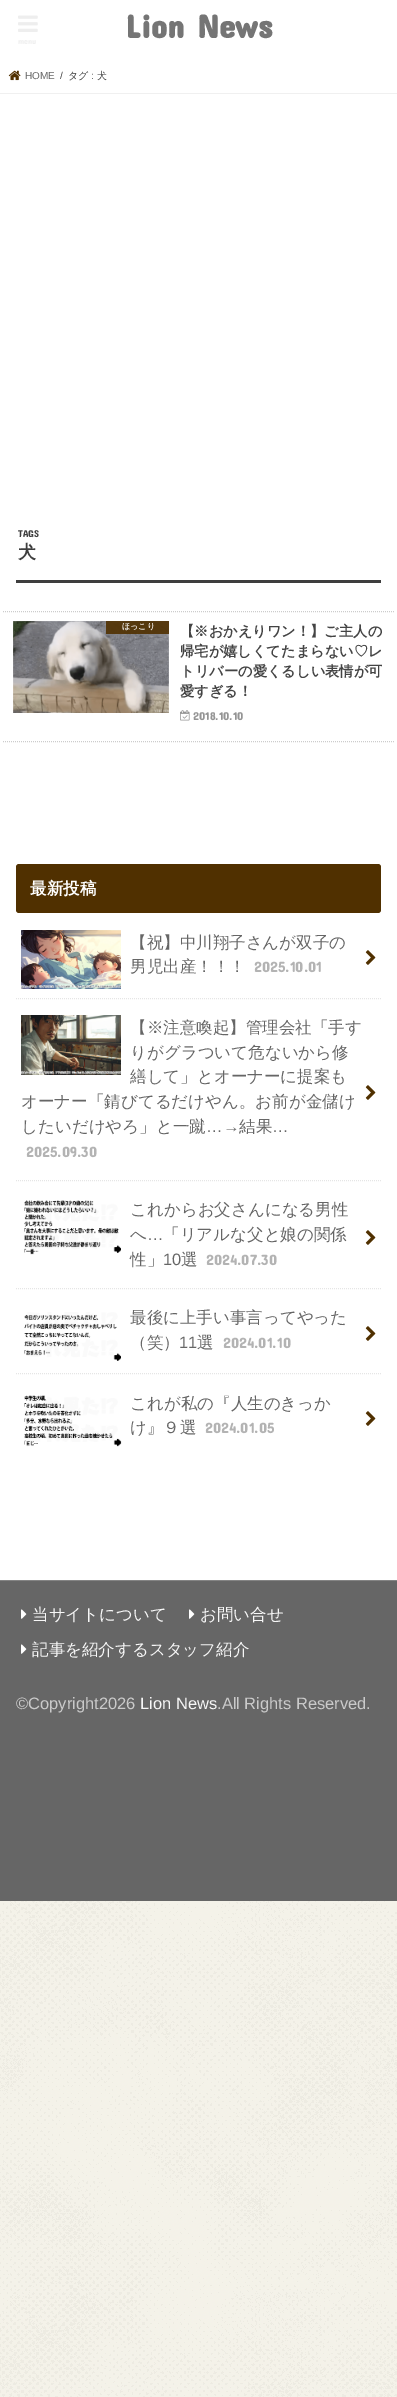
%!PS
<< /PageSize [397 2397] /PageUsesTransparency true >> setpagedevice
/alpha { dup .setfillconstantalpha .setstrokeconstantalpha } def
/roundrect { 5 dict begin { /r /h /w /y /x } { exch def } forall
  x r add y moveto x w add y 2 copy h add r arct x w add y h add x 1 index r arct
  x y h add x y r arct x y 2 copy exch w add exch r arct closepath end } def
/shadow { 12 dict begin { /a /b /q /h /w /y /x } { exch def } forall gsave /was 0 def
  9 -2 -9 { dup b mul 4 div /e exch def 1 sub .425 mul 2.718 exch exp 1 add a .99 .min exch div /now exch def
    1 1 now sub 1 was sub div sub alpha /was now def
    w h .min e 2 mul add 0 gt { x e sub y e sub w e 2 mul add h e 2 mul add
      q e add b .6 mul add w h .min 2 div e add .min 0 .max roundrect fill } if } for grestore end } def
/picture { 5 dict begin { /h /w /y /x /name } { exch def } forall
  gsave x y translate w h scale
  w h 8 [w 0 0 h 0 0] name (r) file false 3 colorimage grestore end } def
0 .pushpdf14devicefilter
0 2397 translate 1 -1 scale
4 setmiterlimit
1 setgray
0 0 397 2397 rectfill
(img1.rgb) 0 1901 397 496 picture
/ConcertOne-Bold [33 0 0 -33 0 0] selectfont
0.459 setgray
125 38 moveto (Lion News) show
(img2.rgb) 18 15 20 17 picture
/ConcertOne-Regular [8 0 0 -8 0 0] selectfont
0.933 setgray
18 44 moveto (menu) show
0.969 setgray
0 93 397 1 rectfill
(img3.rgb) 8 70 13 11 picture
/LiberationSans-Regular [10 0 0 -10 0 0] selectfont
0.4 setgray
25 79 moveto (HOME) show
0.243 setgray
60 79 moveto (/) show
/WenQuanYiZenHei-Medium [10 0 0 -10 0 0] selectfont
68 79 moveto (タグ) show
/LiberationSans-Regular [10 0 0 -10 0 0] selectfont
91 79 moveto (:) show
/WenQuanYiZenHei-Medium [10 0 0 -10 0 0] selectfont
97 79 moveto (犬) show
0.4 setgray
0 1581 397 320 rectfill
0.867 setgray
0 94 397 1486 0 0.5 1 shadow
1 setgray
0 94 397 1486 rectfill
0.243 setgray
16 580 365 3 rectfill
/ConcertOne-Regular [10 0 0 -10 0 0] selectfont
18 537 moveto (TAGS) show
/WenQuanYiZenHei-Bold [18 0 0 -18 0 0] selectfont
18 558 moveto (犬) show
0.8 setgray
[1 1] 0 setdash
newpath 3 611.5 moveto 394 611.5 lineto stroke
newpath 3 741.5 moveto 394 741.5 lineto stroke
(img4.rgb) 13 621 156 92 picture
0.9 alpha
0.314 0.188 0 setrgbcolor
106 621 63 13 rectfill
/WenQuanYiZenHei-Bold [8 0 0 -8 0 0] selectfont
1 alpha
0.933 0.922 0.906 setrgbcolor
122 629 moveto (ほっこり) show
/WenQuanYiZenHei-Bold [14.25 0 0 -14.25 0 0] selectfont
0.267 setgray
180 636 moveto (【※おかえりワン！】ご主人の) show
180 656 moveto (帰宅が嬉しくてたまらない♡レ) show
180 676 moveto (トリバーの愛くるしい表情が可) show
180 696 moveto (愛すぎる！) show
(img5.rgb) 180 710 10 11 picture
/ConcertOne-Regular [11.5 0 0 -11.5 0 0] selectfont
0.58 setgray
193 720 moveto (2018.10.10) show
0.314 0.188 0 setrgbcolor
16 864 365 49 3 roundrect fill
/WenQuanYiZenHei-Bold [16.5 0 0 -16.5 0 0] selectfont
1 setgray
30 894 moveto (最新投稿) show
0.898 setgray
newpath 16 998.5 moveto 381 998.5 lineto stroke
(img6.rgb) 21 930 100 59 picture
/WenQuanYiZenHei-Medium [16.5 0 0 -16.5 0 0] selectfont
0.4 setgray
130 948 moveto (【祝】中川翔子さんが双子の) show
130 972 moveto (男児出産！！！) show
/ConcertOne-Regular [15 0 0 -15 0 0] selectfont
0.702 setgray
254 972 moveto (2025.10.01) show
(img7.rgb) 365 950 11 15 picture
0.898 setgray
newpath 16 1180.5 moveto 381 1180.5 lineto stroke
(img8.rgb) 21 1015 100 60 picture
/WenQuanYiZenHei-Medium [16.5 0 0 -16.5 0 0] selectfont
0.4 setgray
130 1033 moveto (【※注意喚起】管理会社「手す) show
130 1058 moveto (りがグラついて危ないから修) show
130 1082 moveto (繕して」とオーナーに提案も) show
21 1107 moveto (オーナー「錆びてるだけやん。お前が金儲け) show
(img7.rgb) 365 1085 11 15 picture
21 1132 moveto (したいだけやろ」と一蹴) show
/LiberationSans-Regular [16.5 0 0 -16.5 0 0] selectfont
206 1132 moveto (…→) show
/WenQuanYiZenHei-Medium [16.5 0 0 -16.5 0 0] selectfont
239 1132 moveto (結果) show
/LiberationSans-Regular [16.5 0 0 -16.5 0 0] selectfont
272 1132 moveto (…) show
/ConcertOne-Regular [15 0 0 -15 0 0] selectfont
0.702 setgray
26 1157 moveto (2025.09.30) show
0.898 setgray
newpath 16 1288.5 moveto 381 1288.5 lineto stroke
(img9.rgb) 24 1200 97 55 picture
/WenQuanYiZenHei-Medium [16.5 0 0 -16.5 0 0] selectfont
0.4 setgray
130 1215 moveto (これからお父さんになる男性) show
130 1240 moveto (へ) show
/LiberationSans-Regular [16.5 0 0 -16.5 0 0] selectfont
147 1240 moveto (…) show
/WenQuanYiZenHei-Medium [16.5 0 0 -16.5 0 0] selectfont
163 1240 moveto (「リアルな父と娘の関係) show
(img7.rgb) 365 1230 11 15 picture
130 1265 moveto (性」) show
/LiberationSans-Regular [16.5 0 0 -16.5 0 0] selectfont
163 1265 moveto (10) show
/WenQuanYiZenHei-Medium [16.5 0 0 -16.5 0 0] selectfont
181 1265 moveto (選) show
/ConcertOne-Regular [15 0 0 -15 0 0] selectfont
0.702 setgray
206 1265 moveto (2024.07.30) show
0.898 setgray
newpath 16 1373.5 moveto 381 1373.5 lineto stroke
(img10.rgb) 24 1312 97 49 picture
/WenQuanYiZenHei-Medium [16.5 0 0 -16.5 0 0] selectfont
0.4 setgray
130 1323 moveto (最後に上手い事言ってやった) show
(img7.rgb) 365 1326 11 15 picture
130 1348 moveto (（笑）) show
/LiberationSans-Regular [16.5 0 0 -16.5 0 0] selectfont
179 1348 moveto (11) show
/WenQuanYiZenHei-Medium [16.5 0 0 -16.5 0 0] selectfont
197 1348 moveto (選) show
/ConcertOne-Regular [15 0 0 -15 0 0] selectfont
0.702 setgray
223 1348 moveto (2024.01.10) show
(img11.rgb) 24 1395 98 52 picture
/WenQuanYiZenHei-Medium [16.5 0 0 -16.5 0 0] selectfont
0.4 setgray
130 1409 moveto (これが私の『人生のきっか) show
130 1433 moveto (け』９選) show
/ConcertOne-Regular [15 0 0 -15 0 0] selectfont
0.702 setgray
205 1433 moveto (2024.01.05) show
(img7.rgb) 365 1411 11 15 picture
0.518 setgray
0 1580 397 1 rectfill
(img12.rgb) 21 1609 6 10 picture
/WenQuanYiZenHei-Medium [16.5 0 0 -16.5 0 0] selectfont
0.969 setgray
32 1620 moveto (当サイトについて) show
(img12.rgb) 189 1609 6 10 picture
200 1620 moveto (お問い合せ) show
(img12.rgb) 21 1644 6 10 picture
32 1655 moveto (記事を紹介するスタッフ紹介) show
/LiberationSans-Regular [16.5 0 0 -16.5 0 0] selectfont
0.792 setgray
16 1709 moveto (©Copyright2026) show
0.969 setgray
140 1709 moveto (Lion News) show
0.792 setgray
217 1709 moveto (.All Rights Reserved.) show
.poppdf14devicefilter showpage
